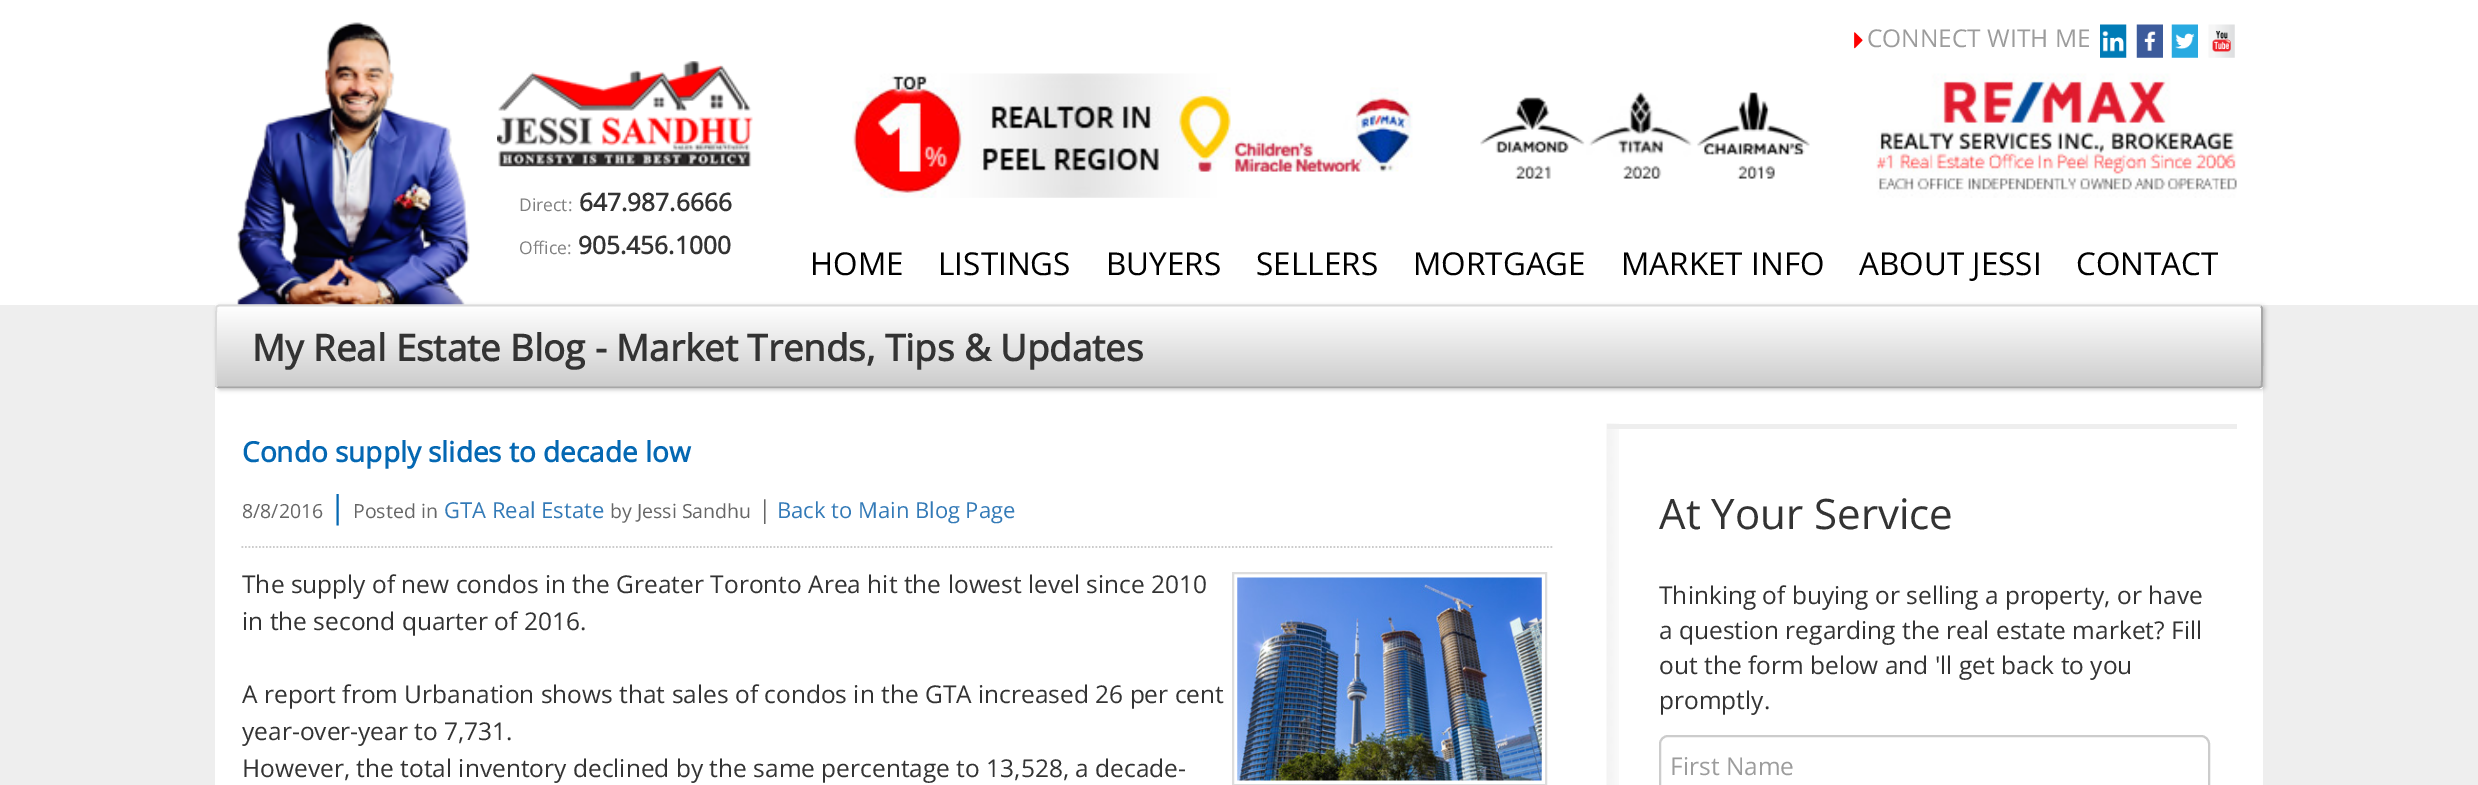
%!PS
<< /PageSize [2478 785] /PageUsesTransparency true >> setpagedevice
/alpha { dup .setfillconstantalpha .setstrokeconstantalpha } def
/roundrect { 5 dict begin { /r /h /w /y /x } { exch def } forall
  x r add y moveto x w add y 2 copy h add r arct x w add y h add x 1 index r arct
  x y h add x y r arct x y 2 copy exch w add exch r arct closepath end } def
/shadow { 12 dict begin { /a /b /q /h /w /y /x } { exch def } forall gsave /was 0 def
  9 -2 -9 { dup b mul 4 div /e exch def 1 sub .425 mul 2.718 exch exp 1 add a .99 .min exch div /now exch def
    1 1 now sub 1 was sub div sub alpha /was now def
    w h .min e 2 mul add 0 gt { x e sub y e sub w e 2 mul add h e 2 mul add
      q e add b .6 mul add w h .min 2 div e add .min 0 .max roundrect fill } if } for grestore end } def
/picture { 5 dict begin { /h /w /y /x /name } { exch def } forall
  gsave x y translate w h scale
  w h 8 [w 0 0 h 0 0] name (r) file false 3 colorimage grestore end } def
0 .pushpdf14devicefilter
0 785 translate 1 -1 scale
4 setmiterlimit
1 setgray
0 0 2478 785 rectfill
(img1.rgb) 237 22 233 283 picture
(img2.rgb) 497 61 256 106 picture
/OpenSans-Regular [17.5 0 0 -17.5 0 0] selectfont
0.502 setgray
519 211 moveto (Direct:) show
/OpenSans-Bold [24.5 0 0 -24.5 0 0] selectfont
0.2 setgray
579 211 moveto (647.987.6666) show
/OpenSans-Regular [17.5 0 0 -17.5 0 0] selectfont
0.502 setgray
519 254 moveto (Office:) show
/OpenSans-Bold [24.5 0 0 -24.5 0 0] selectfont
0.2 setgray
578 254 moveto (905.456.1000) show
(img3.rgb) 1854 32 9 17 picture
/OpenSans-Regular [24.5 0 0 -24.5 0 0] selectfont
0.612 setgray
1867 47 moveto (CONNECT WITH ME) show
(img4.rgb) 2100 24 27 34 picture
(img5.rgb) 2136 24 27 34 picture
(img6.rgb) 2171 24 27 34 picture
(img7.rgb) 2208 24 27 34 picture
(img8.rgb) 852 73 561 125 picture
(img9.rgb) 1480 92 330 87 picture
(img10.rgb) 1876 73 361 125 picture
/OpenSans-Regular [31.5 0 0 -31.5 0 0] selectfont
0 setgray
810 275 moveto (HOME) show
938 275 moveto (LISTINGS) show
1106 275 moveto (BUYERS) show
1256 275 moveto (SELLERS) show
1413 275 moveto (MORTGAGE) show
1621 275 moveto (MARKET INFO) show
1859 275 moveto (ABOUT JESSI) show
2076 275 moveto (CONTACT) show
0.933 setgray
0 305 2478 480 rectfill
1 setgray
215 305 2048 480 rectfill
0 setgray
217 306 2048 84 4 2 0.2 shadow
gsave
215 305 2048 84 4 roundrect clip newpath
gsave newpath 215 306 moveto 2263 306 lineto 2263 387 lineto 215 387 lineto closepath clip newpath
<< /ShadingType 2 /ColorSpace /DeviceRGB /Coords [1239 306 1239 387] /Extend [true true] /Function << /FunctionType 2 /Domain [0 1] /C0 [1 1 1] /C1 [0.8 0.8 0.8] /N 1 >> >> shfill grestore
gsave newpath 215 387 moveto 2263 387 lineto 2263 389 lineto 215 389 lineto closepath clip newpath
<< /ShadingType 2 /ColorSpace /DeviceRGB /Coords [1239 387 1239 467] /Extend [true true] /Function << /FunctionType 2 /Domain [0 1] /C0 [1 1 1] /C1 [0.8 0.8 0.8] /N 1 >> >> shfill grestore
grestore
0.655 setgray
1.8 setlinewidth
newpath 2261 306 moveto 2262 308 lineto 2262 321 lineto 2262 328 2262.5 384.5 2261.5 386.5 curveto 2259 387.5 lineto 219 387.5 lineto 217 387 lineto stroke
0.855 setgray
newpath 217 387 moveto 216 385 lineto 216 372 lineto 216 365 215.5 308.5 216.5 306.5 curveto 219 305.5 lineto 2259 305.5 lineto 2261 306 lineto stroke
/OpenSans-Bold [36.75 0 0 -36.75 0 0] selectfont
0.2 setgray
252 361 moveto (My Real Estate Blog - Market Trends, Tips & Updates) show
/OpenSans-Bold [28 0 0 -28 0 0] selectfont
0.016 0.408 0.702 setrgbcolor
242 462 moveto (Condo supply slides to decade low) show
/OpenSans-Regular [19.5 0 0 -19.5 0 0] selectfont
0.4 setgray
242 518 moveto (8/8/2016) show
/OpenSans-Regular [31.5 0 0 -31.5 0 0] selectfont
0.016 0.408 0.702 setrgbcolor
329 518 moveto (|) show
/OpenSans-Regular [19.5 0 0 -19.5 0 0] selectfont
0.4 setgray
353 518 moveto (Posted in) show
/OpenSans-Regular [22 0 0 -22 0 0] selectfont
0.2 0.478 0.718 setrgbcolor
444 518 moveto (GTA Real Estate) show
/OpenSans-Regular [19.5 0 0 -19.5 0 0] selectfont
0.4 setgray
610 518 moveto (by Jessi Sandhu) show
/OpenSans-Regular [24.5 0 0 -24.5 0 0] selectfont
758 518 moveto (|) show
/OpenSans-Regular [22 0 0 -22 0 0] selectfont
0.2 0.478 0.718 setrgbcolor
777 518 moveto (Back to Main Blog Page) show
0.8 setgray
[1.75 1.75] 0 setdash
newpath 241.5 547 moveto 1554 547 lineto stroke
/OpenSans-Regular [24.5 0 0 -24.5 0 0] selectfont
0.2 setgray
242 593 moveto (The supply of new condos in the Greater Toronto Area hit the lowest level since 2010) show
242 630 moveto (in the second quarter of 2016.) show
242 703 moveto (A report from Urbanation shows that sales of condos in the GTA increased 26 per cent) show
242 740 moveto (year-over-year to 7,731.) show
242 777 moveto (However, the total inventory declined by the same percentage to 13,528, a decade-) show
0.867 setgray
2 setlinewidth
[] 0 setdash
1233 573 313 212 rectstroke
(img11.rgb) 1237 577 305 204 picture
(img12.rgb) 1606 423 13 362 picture
0.933 setgray
1607 424 630 5 rectfill
/OpenSans-Regular [42 0 0 -42 0 0] selectfont
0.2 setgray
1659 529 moveto (At Your Service) show
/OpenSans-Regular [24.5 0 0 -24.5 0 0] selectfont
1659 604 moveto (Thinking of buying or selling a property, or have) show
1659 639 moveto (a question regarding the real estate market? Fill) show
1659 674 moveto (out the form below and 'll get back to you) show
1659 709 moveto (promptly.) show
0.8 setgray
1660 736 549 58 8 roundrect stroke
0.612 setgray
1670 775 moveto (First Name) show
.poppdf14devicefilter showpage
